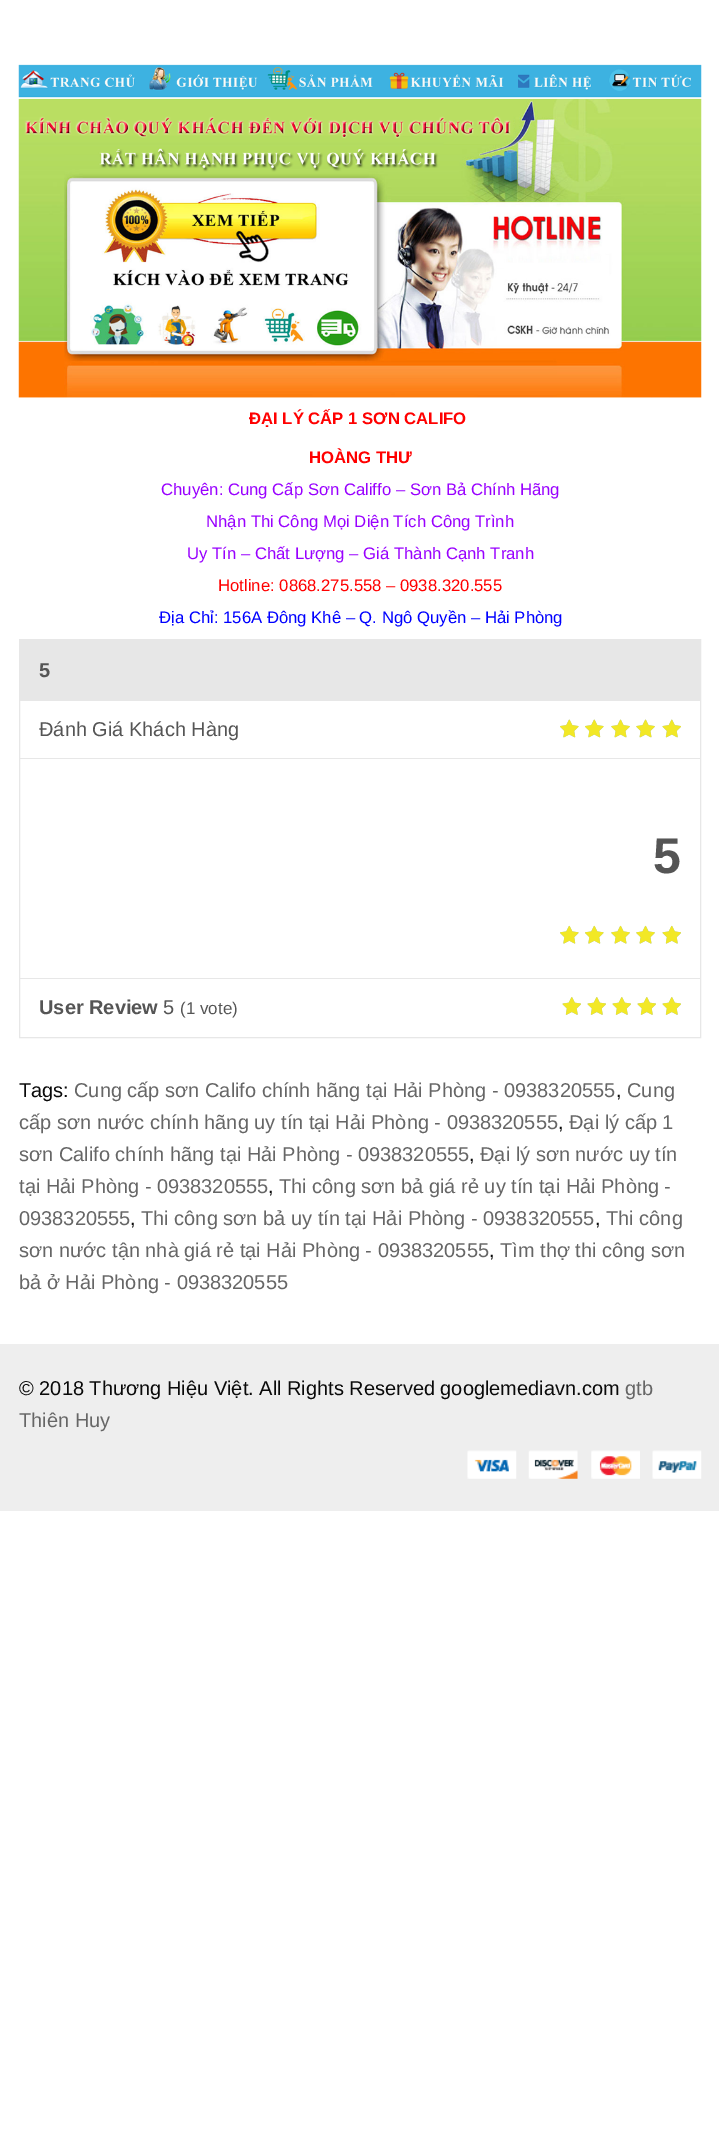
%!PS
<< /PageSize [719 2140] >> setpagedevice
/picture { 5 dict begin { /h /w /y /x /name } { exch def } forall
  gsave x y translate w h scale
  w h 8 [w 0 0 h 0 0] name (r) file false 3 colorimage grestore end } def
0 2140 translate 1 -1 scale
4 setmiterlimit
1 setgray
0 0 719 2140 rectfill
(img1.rgb) 18 64 684 334 picture
/LiberationSans-Bold [16.7 0 0 -16.7 0 0] selectfont
1 0 0 setrgbcolor
249 424 moveto (ĐẠI LÝ CẤP 1 SƠN CALIFO) show
309 463 moveto (HOÀNG THƯ) show
/LiberationSans-Regular [16.7 0 0 -16.7 0 0] selectfont
0.6 0 1 setrgbcolor
161 495 moveto (Chuyên: Cung Cấp Sơn Califfo – Sơn Bả Chính Hãng) show
206 527 moveto (Nhận Thi Công Mọi Diện Tích Công Trình) show
187 559 moveto (Uy Tín – Chất Lượng – Giá Thành Cạnh Tranh) show
1 0 0 setrgbcolor
218 591 moveto (Hotline: 0868.275.558 – 0938.320.555) show
0 0 1 setrgbcolor
159 623 moveto (Địa Chỉ: 156A Đông Khê – Q. Ngô Quyền – Hải Phòng) show
0.906 setgray
19.5 639.5 681 398 rectstroke
20 640 680 61 rectfill
/LiberationSans-Bold [20 0 0 -20 0 0] selectfont
0.333 setgray
39 677 moveto (5) show
0.906 setgray
20 758 680 1 rectfill
/LiberationSans-Regular [20 0 0 -20 0 0] selectfont
0.333 setgray
39 736 moveto (Đánh Giá Khách Hàng) show
(img2.rgb) 560 719 19 19 picture
(img3.rgb) 560 719 19 19 picture
(img2.rgb) 585 719 19 19 picture
(img3.rgb) 585 719 19 19 picture
(img6.rgb) 611 719 19 19 picture
(img4.rgb) 611 719 19 19 picture
(img6.rgb) 636 719 19 19 picture
(img4.rgb) 636 719 19 19 picture
(img7.rgb) 662 719 19 19 picture
(img5.rgb) 662 719 19 19 picture
/LiberationSans-Bold [50 0 0 -50 0 0] selectfont
653 873 moveto (5) show
(img8.rgb) 560 925 19 19 picture
(img9.rgb) 560 925 19 19 picture
(img8.rgb) 585 925 19 19 picture
(img9.rgb) 585 925 19 19 picture
(img12.rgb) 611 925 19 19 picture
(img10.rgb) 611 925 19 19 picture
(img12.rgb) 636 925 19 19 picture
(img10.rgb) 636 925 19 19 picture
(img13.rgb) 662 925 19 19 picture
(img11.rgb) 662 925 19 19 picture
0.906 setgray
20 978 680 1 rectfill
/LiberationSans-Bold [20 0 0 -20 0 0] selectfont
0.333 setgray
39 1014 moveto (User Review) show
/LiberationSans-Regular [20 0 0 -20 0 0] selectfont
163 1014 moveto (5) show
/LiberationSans-Regular [17 0 0 -17 0 0] selectfont
180 1014 moveto (\(1 vote\)) show
(img14.rgb) 562 997 19 18 picture
(img15.rgb) 562 997 19 18 picture
(img14.rgb) 587 997 19 18 picture
(img15.rgb) 587 997 19 18 picture
(img14.rgb) 612 997 19 18 picture
(img15.rgb) 612 997 19 18 picture
(img14.rgb) 637 997 19 18 picture
(img15.rgb) 637 997 19 18 picture
(img14.rgb) 662 997 19 18 picture
(img15.rgb) 662 997 19 18 picture
/LiberationSans-Regular [20 0 0 -20 0 0] selectfont
0.039 setgray
19 1097 moveto (Tags:) show
0.4 setgray
74 1097 moveto (Cung cấp sơn Califo chính hãng tại Hải Phòng - 0938320555) show
0.039 setgray
616 1097 moveto (,) show
0.4 setgray
627 1097 moveto (Cung) show
19 1129 moveto (cấp sơn nước chính hãng uy tín tại Hải Phòng - 0938320555) show
0.039 setgray
558 1129 moveto (,) show
0.4 setgray
569 1129 moveto (Đại lý cấp 1) show
19 1161 moveto (sơn Califo chính hãng tại Hải Phòng - 0938320555) show
0.039 setgray
469 1161 moveto (,) show
0.4 setgray
480 1161 moveto (Đại lý sơn nước uy tín) show
19 1193 moveto (tại Hải Phòng - 0938320555) show
0.039 setgray
268 1193 moveto (,) show
0.4 setgray
279 1193 moveto (Thi công sơn bả giá rẻ uy tín tại Hải Phòng -) show
19 1225 moveto (0938320555) show
0.039 setgray
130 1225 moveto (,) show
0.4 setgray
141 1225 moveto (Thi công sơn bả uy tín tại Hải Phòng - 0938320555) show
0.039 setgray
595 1225 moveto (,) show
0.4 setgray
606 1225 moveto (Thi công) show
19 1257 moveto (sơn nước tận nhà giá rẻ tại Hải Phòng - 0938320555) show
0.039 setgray
489 1257 moveto (,) show
0.4 setgray
500 1257 moveto (Tìm thợ thi công sơn) show
19 1289 moveto (bả ở Hải Phòng - 0938320555) show
0.933 setgray
0 1344 719 167 rectfill
0.039 setgray
19 1395 moveto (© 2018 Thương Hiệu Việt. All Rights Reserved googlemediavn.com) show
0.4 setgray
625 1395 moveto (gtb) show
19 1427 moveto (Thiên Huy) show
(img16.rgb) 467 1450 50 29 picture
(img17.rgb) 528 1450 50 29 picture
(img18.rgb) 591 1450 49 29 picture
(img19.rgb) 652 1450 50 29 picture
showpage
